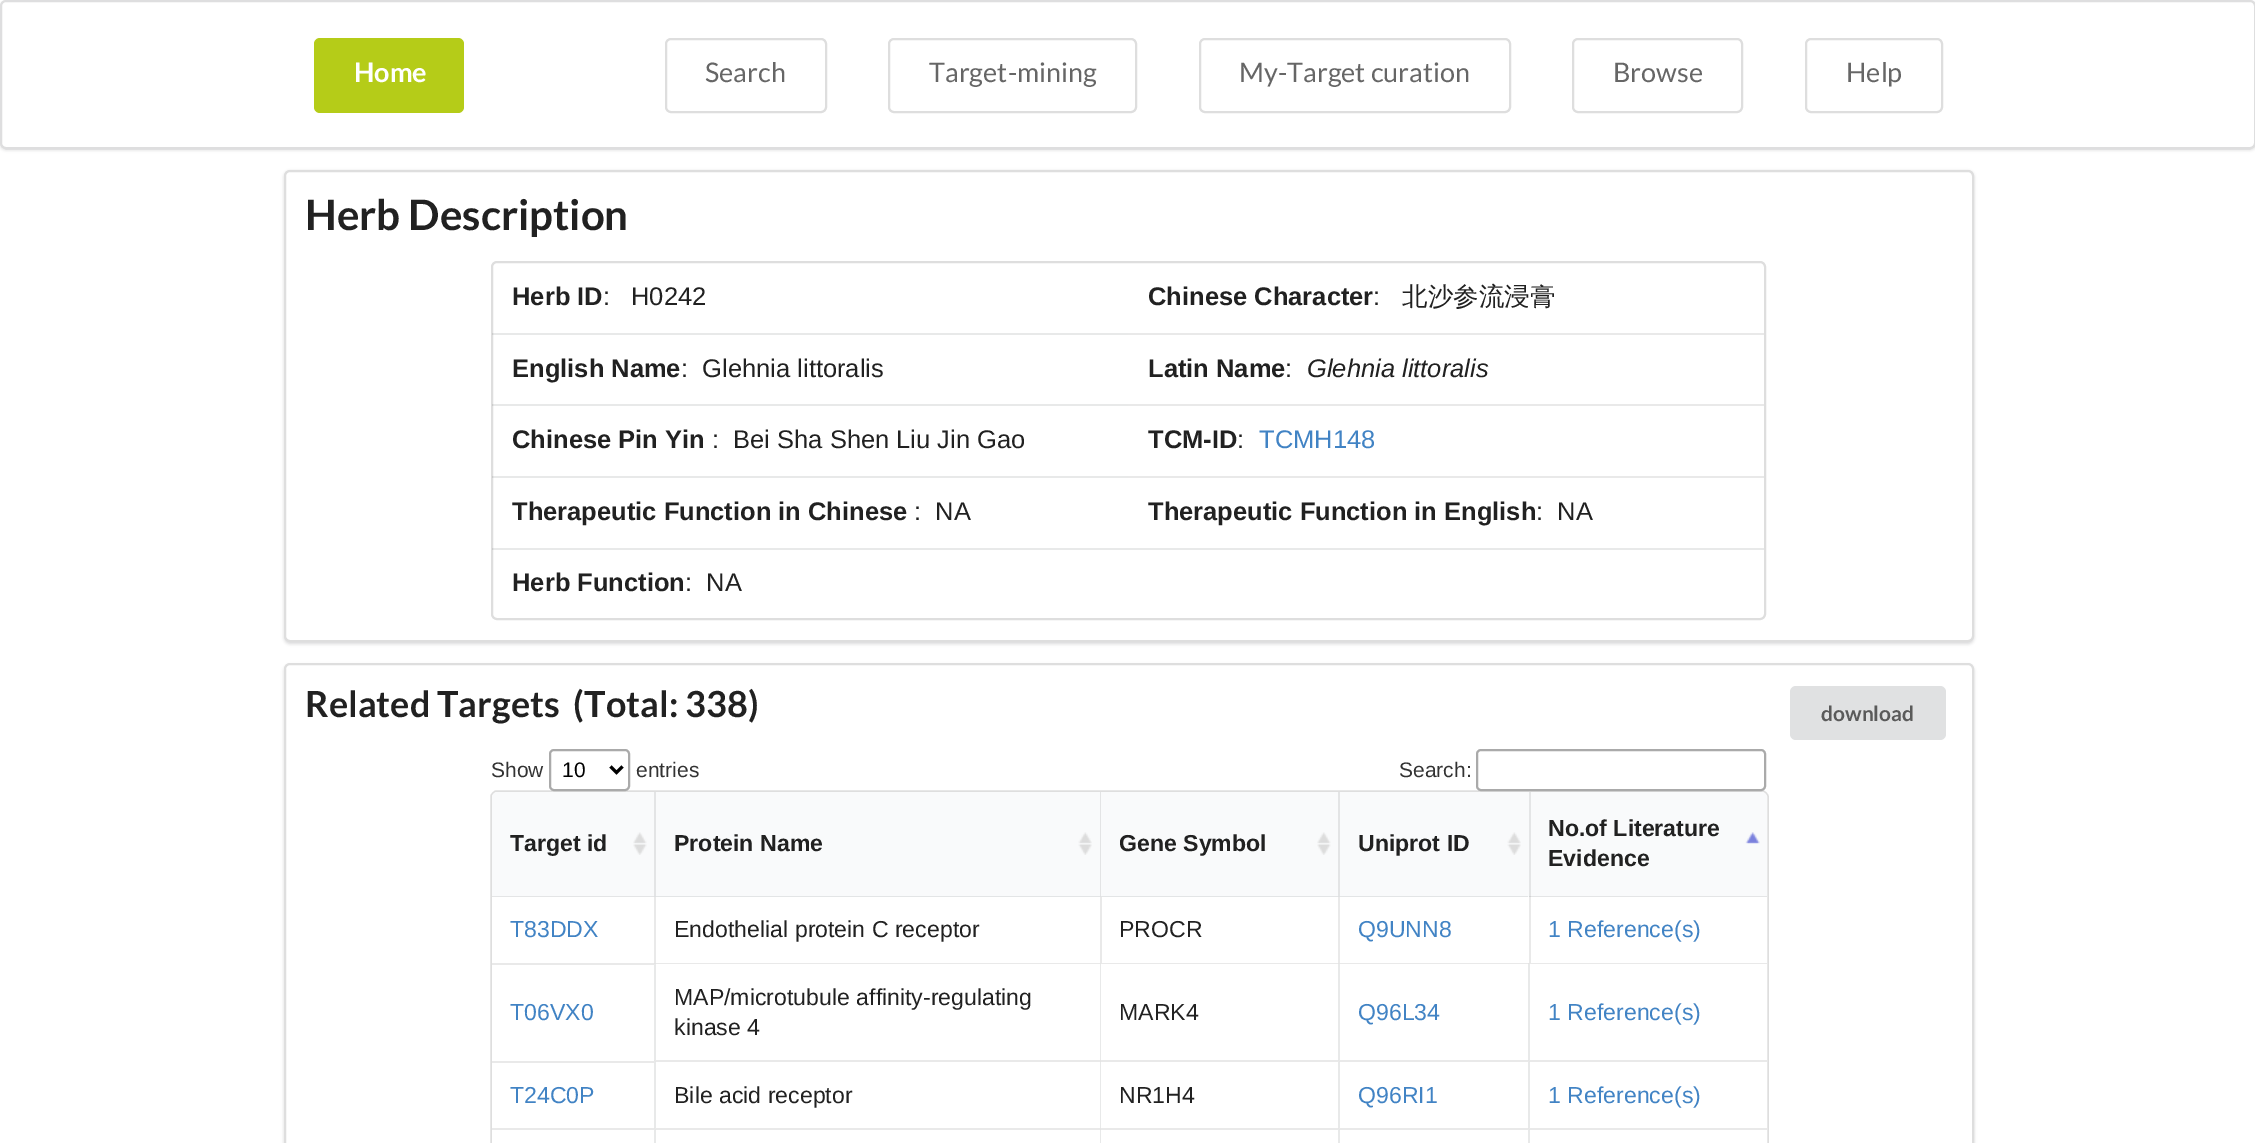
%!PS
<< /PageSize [2255 1143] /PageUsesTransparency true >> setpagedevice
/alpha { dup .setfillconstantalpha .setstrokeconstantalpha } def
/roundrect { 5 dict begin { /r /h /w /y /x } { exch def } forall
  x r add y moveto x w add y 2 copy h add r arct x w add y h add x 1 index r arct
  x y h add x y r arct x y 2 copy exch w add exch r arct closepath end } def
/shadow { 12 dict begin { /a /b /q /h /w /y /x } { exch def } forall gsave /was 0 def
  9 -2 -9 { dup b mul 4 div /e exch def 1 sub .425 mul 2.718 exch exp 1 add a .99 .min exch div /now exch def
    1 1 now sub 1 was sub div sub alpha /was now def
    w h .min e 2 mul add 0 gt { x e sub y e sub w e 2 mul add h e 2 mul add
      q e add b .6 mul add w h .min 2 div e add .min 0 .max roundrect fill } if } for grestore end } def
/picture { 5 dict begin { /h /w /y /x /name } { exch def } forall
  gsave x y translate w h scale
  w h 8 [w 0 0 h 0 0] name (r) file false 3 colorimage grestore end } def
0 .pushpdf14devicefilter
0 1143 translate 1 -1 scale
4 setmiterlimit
1 setgray
0 0 2255 1143 rectfill
0.133 0.141 0.149 setrgbcolor
0 2 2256 148 6 1.5 0.15 shadow
1 setgray
0 0 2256 149 6 roundrect fill
0.15 alpha
0.133 0.141 0.149 setrgbcolor
2 setlinewidth
1 1 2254 147 5 roundrect stroke
1 alpha
0.71 0.8 0.094 setrgbcolor
314 38 150 75 6 roundrect fill
/Lato-Bold [27 0 0 -27 0 0] selectfont
1 setgray
354 82 moveto (Home) show
0.871 setgray
666 39 160 73 5 roundrect stroke
/Lato-Regular [27 0 0 -27 0 0] selectfont
0.4 setgray
705 82 moveto (Search) show
0.871 setgray
889 39 247 73 5 roundrect stroke
0.4 setgray
929 82 moveto (Target-mining) show
0.871 setgray
1200 39 310 73 5 roundrect stroke
0.4 setgray
1239 82 moveto (My-Target curation) show
0.871 setgray
1573 39 169 73 5 roundrect stroke
0.4 setgray
1613 82 moveto (Browse) show
0.871 setgray
1806 39 136 73 5 roundrect stroke
0.4 setgray
1846 82 moveto (Help) show
0.133 0.141 0.149 setrgbcolor
284 171 1690 473 6 1.5 0.15 shadow
1 setgray
285 171 1688 470 5 roundrect gsave fill grestore
0.871 setgray
stroke
/Lato-Bold [42 0 0 -42 0 0] selectfont
0.129 setgray
305 230 moveto (Herb Description) show
0.871 setgray
492 262 1273 357 5 roundrect stroke
/LiberationSans-Bold [25.5 0 0 -25.5 0 0] selectfont
0.129 setgray
512 305 moveto (Herb ID) show
/LiberationSans-Regular [25.5 0 0 -25.5 0 0] selectfont
603 305 moveto (:) show
631 305 moveto (H0242) show
/LiberationSans-Bold [25.5 0 0 -25.5 0 0] selectfont
1148 305 moveto (Chinese Character) show
/LiberationSans-Regular [25.5 0 0 -25.5 0 0] selectfont
1373 305 moveto (:) show
/WenQuanYiZenHei-Medium [25.5 0 0 -25.5 0 0] selectfont
1402 305 moveto (北沙参流浸膏) show
0.1 alpha
0.133 0.141 0.149 setrgbcolor
492 333 636 2 rectfill
/LiberationSans-Bold [25.5 0 0 -25.5 0 0] selectfont
1 alpha
0.129 setgray
512 377 moveto (English Name) show
/LiberationSans-Regular [25.5 0 0 -25.5 0 0] selectfont
681 377 moveto (:  Glehnia littoralis) show
0.914 setgray
1128 333 636 2 rectfill
/LiberationSans-Bold [25.5 0 0 -25.5 0 0] selectfont
0.129 setgray
1148 377 moveto (Latin Name) show
/LiberationSans-Regular [25.5 0 0 -25.5 0 0] selectfont
1285 377 moveto (:) show
/LiberationSans-Italic [25.5 0 0 -25.5 0 0] selectfont
1307 377 moveto (Glehnia littoralis) show
0.1 alpha
0.133 0.141 0.149 setrgbcolor
492 404 636 2 rectfill
/LiberationSans-Bold [25.5 0 0 -25.5 0 0] selectfont
1 alpha
0.129 setgray
512 448 moveto (Chinese Pin Yin) show
/LiberationSans-Regular [25.5 0 0 -25.5 0 0] selectfont
712 448 moveto (:  Bei Sha Shen Liu Jin Gao) show
0.914 setgray
1128 404 636 2 rectfill
/LiberationSans-Bold [25.5 0 0 -25.5 0 0] selectfont
0.129 setgray
1148 448 moveto (TCM-ID) show
/LiberationSans-Regular [25.5 0 0 -25.5 0 0] selectfont
1237 448 moveto (:) show
0.255 0.514 0.769 setrgbcolor
1259 448 moveto (TCMH148) show
0.1 alpha
0.133 0.141 0.149 setrgbcolor
492 476 636 2 rectfill
/LiberationSans-Bold [25.5 0 0 -25.5 0 0] selectfont
1 alpha
0.129 setgray
512 520 moveto (Therapeutic Function in Chinese) show
/LiberationSans-Regular [25.5 0 0 -25.5 0 0] selectfont
914 520 moveto (:  NA) show
0.914 setgray
1128 476 636 2 rectfill
/LiberationSans-Bold [25.5 0 0 -25.5 0 0] selectfont
0.129 setgray
1148 520 moveto (Therapeutic Function in English) show
/LiberationSans-Regular [25.5 0 0 -25.5 0 0] selectfont
1536 520 moveto (:  NA) show
0.1 alpha
0.133 0.141 0.149 setrgbcolor
492 548 1272 2 rectfill
/LiberationSans-Bold [25.5 0 0 -25.5 0 0] selectfont
1 alpha
0.129 setgray
512 591 moveto (Herb Function) show
/LiberationSans-Regular [25.5 0 0 -25.5 0 0] selectfont
685 591 moveto (:  NA) show
0.133 0.141 0.149 setrgbcolor
284 665 1690 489 6 1.5 0.15 shadow
1 setgray
285 664 1688 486 5 roundrect gsave fill grestore
0.871 setgray
stroke
/Lato-Bold [36 0 0 -36 0 0] selectfont
0.129 setgray
305 717 moveto (Related Targets  \(Total: 338\)) show
0.878 0.882 0.886 setrgbcolor
1790 686 156 54 6 roundrect fill
/Lato-Bold [21 0 0 -21 0 0] selectfont
0.353 setgray
1821 721 moveto (download) show
/LiberationSans-Regular [21 0 0 -21 0 0] selectfont
0.2 setgray
491 777 moveto (Show) show
0.871 setgray
1.5 setlinewidth
newpath 493 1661 moveto 492 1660 491 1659 491 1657.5 curveto 491 796.5 lineto 491 795 492 794 493 793 curveto 494 792 495 791 496.5 791 curveto 1762.5 791 lineto 1764 791 1765 792 1766 793 curveto 1767 794 1768 795 1768 796.5 curveto 1768 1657.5 lineto 1768 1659 1767 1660 1766 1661 curveto stroke
0.667 setgray
2 setlinewidth
550 750 79 40 4 roundrect stroke
0 setgray
3 setlinewidth
newpath 610.5 766.5 moveto 616.5 772.5 lineto 622.5 766.5 lineto stroke
562 777 moveto (10) show
0.2 setgray
636 777 moveto (entries) show
1399 777 moveto (Search:) show
0.667 setgray
2 setlinewidth
1477 750 288 40 4 roundrect stroke
0.976 0.98 0.984 setrgbcolor
newpath 498 792 moveto 654 792 lineto 654 897 lineto 492 897 lineto 492 798 lineto 492 794.5 494.5 792 498 792 curveto closepath fill
0.894 0.898 0.902 setrgbcolor
492 896 162 1 rectfill
(img1.rgb) 633 832 14 23 picture
/LiberationSans-Bold [23.1 0 0 -23.1 0 0] selectfont
0.129 setgray
510 851 moveto (Target id) show
0.976 0.98 0.984 setrgbcolor
654 792 875 105 rectfill
(img2.rgb) 1078 832 14 23 picture
0.89 0.898 0.902 setrgbcolor
newpath 1100 897 moveto 654 897 lineto 656 896 lineto 1100 896 lineto closepath fill
0.1 alpha
0.133 0.141 0.149 setrgbcolor
newpath 654 897 moveto 654 792 lineto 656 792 lineto 656 896 lineto closepath fill
1 alpha
0.129 setgray
674 851 moveto (Protein Name) show
(img1.rgb) 1317 832 14 23 picture
0.89 0.898 0.902 setrgbcolor
newpath 1338 897 moveto 1100 897 lineto 1101 896 lineto 1338 896 lineto closepath fill
0.1 alpha
0.133 0.141 0.149 setrgbcolor
newpath 1100 897 moveto 1100 792 lineto 1101 792 lineto 1101 896 lineto closepath fill
1 alpha
0.129 setgray
1119 851 moveto (Gene Symbol) show
(img2.rgb) 1507 832 14 23 picture
0.89 0.898 0.902 setrgbcolor
newpath 1528 897 moveto 1338 897 lineto 1340 896 lineto 1528 896 lineto closepath fill
0.1 alpha
0.133 0.141 0.149 setrgbcolor
newpath 1338 897 moveto 1338 792 lineto 1340 792 lineto 1340 896 lineto closepath fill
1 alpha
0.129 setgray
1358 851 moveto (Uniprot ID) show
0.976 0.98 0.984 setrgbcolor
newpath 1529 792 moveto 1761 792 lineto 1764.5 792 1767 794.5 1767 798 curveto 1767 897 lineto 1529 897 lineto closepath fill
0.894 0.898 0.902 setrgbcolor
1529 792 2 105 rectfill
1529 896 238 1 rectfill
0.82 0.824 0.827 setrgbcolor
1529 896 2 1 rectfill
(img3.rgb) 1745 832 15 12 picture
0.129 setgray
1548 836 moveto (No.of Literature) show
1548 866 moveto (Evidence) show
/LiberationSans-Regular [23.1 0 0 -23.1 0 0] selectfont
0.255 0.514 0.769 setrgbcolor
510 937 moveto (T83DDX) show
0.914 setgray
654 897 2 66 rectfill
0.129 setgray
674 937 moveto (Endothelial protein C receptor) show
0.914 setgray
1100 897 2 66 rectfill
0.129 setgray
1119 937 moveto (PROCR) show
0.914 setgray
1338 897 2 66 rectfill
0.255 0.514 0.769 setrgbcolor
1358 937 moveto (Q9UNN8) show
0.914 setgray
1529 897 2 66 rectfill
0.255 0.514 0.769 setrgbcolor
1548 937 moveto (1 Reference\(s\)) show
0.914 setgray
492 963 162 2 rectfill
0.255 0.514 0.769 setrgbcolor
510 1020 moveto (T06VX0) show
0.914 setgray
newpath 654 963 moveto 1100 963 lineto 1100 964 lineto 656 964 lineto closepath fill
0.1 alpha
0.133 0.141 0.149 setrgbcolor
newpath 654 1060 moveto 654 963 lineto 656 964 lineto 656 1060 lineto closepath fill
1 alpha
0.129 setgray
674 1005 moveto (MAP/microtubule affinity-regulating) show
674 1035 moveto (kinase 4) show
0.914 setgray
newpath 1100 963 moveto 1338 963 lineto 1338 964 lineto 1101 964 lineto closepath fill
0.1 alpha
0.133 0.141 0.149 setrgbcolor
newpath 1100 1060 moveto 1100 963 lineto 1101 964 lineto 1101 1060 lineto closepath fill
1 alpha
0.129 setgray
1119 1020 moveto (MARK4) show
0.914 setgray
newpath 1338 963 moveto 1528 963 lineto 1528 964 lineto 1340 964 lineto closepath fill
0.1 alpha
0.133 0.141 0.149 setrgbcolor
newpath 1338 1060 moveto 1338 963 lineto 1340 964 lineto 1340 1060 lineto closepath fill
1 alpha
0.255 0.514 0.769 setrgbcolor
1358 1020 moveto (Q96L34) show
0.914 setgray
newpath 1528 963 moveto 1767 963 lineto 1767 964 lineto 1530 964 lineto closepath fill
0.1 alpha
0.133 0.141 0.149 setrgbcolor
newpath 1528 1060 moveto 1528 963 lineto 1530 964 lineto 1530 1060 lineto closepath fill
1 alpha
0.255 0.514 0.769 setrgbcolor
1548 1020 moveto (1 Reference\(s\)) show
0.914 setgray
492 1061 162 2 rectfill
0.255 0.514 0.769 setrgbcolor
510 1103 moveto (T24C0P) show
0.914 setgray
newpath 654 1060 moveto 1100 1060 lineto 1100 1062 lineto 656 1062 lineto closepath fill
0.1 alpha
0.133 0.141 0.149 setrgbcolor
newpath 654 1128 moveto 654 1060 lineto 656 1062 lineto 656 1128 lineto closepath fill
1 alpha
0.129 setgray
674 1103 moveto (Bile acid receptor) show
0.914 setgray
newpath 1100 1060 moveto 1338 1060 lineto 1338 1062 lineto 1101 1062 lineto closepath fill
0.1 alpha
0.133 0.141 0.149 setrgbcolor
newpath 1100 1128 moveto 1100 1060 lineto 1101 1062 lineto 1101 1128 lineto closepath fill
1 alpha
0.129 setgray
1119 1103 moveto (NR1H4) show
0.914 setgray
newpath 1338 1060 moveto 1528 1060 lineto 1528 1062 lineto 1340 1062 lineto closepath fill
0.1 alpha
0.133 0.141 0.149 setrgbcolor
newpath 1338 1128 moveto 1338 1060 lineto 1340 1062 lineto 1340 1128 lineto closepath fill
1 alpha
0.255 0.514 0.769 setrgbcolor
1358 1103 moveto (Q96RI1) show
0.914 setgray
newpath 1528 1060 moveto 1767 1060 lineto 1767 1062 lineto 1530 1062 lineto closepath fill
0.1 alpha
0.133 0.141 0.149 setrgbcolor
newpath 1528 1128 moveto 1528 1060 lineto 1530 1062 lineto 1530 1128 lineto closepath fill
1 alpha
0.255 0.514 0.769 setrgbcolor
1548 1103 moveto (1 Reference\(s\)) show
0.914 setgray
492 1128 162 2 rectfill
newpath 654 1128 moveto 1100 1128 lineto 1100 1130 lineto 656 1130 lineto closepath fill
0.1 alpha
0.133 0.141 0.149 setrgbcolor
newpath 654 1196 moveto 654 1128 lineto 656 1130 lineto 656 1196 lineto closepath fill
1 alpha
0.914 setgray
newpath 1100 1128 moveto 1338 1128 lineto 1338 1130 lineto 1101 1130 lineto closepath fill
0.1 alpha
0.133 0.141 0.149 setrgbcolor
newpath 1100 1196 moveto 1100 1128 lineto 1101 1130 lineto 1101 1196 lineto closepath fill
1 alpha
0.914 setgray
newpath 1338 1128 moveto 1528 1128 lineto 1528 1130 lineto 1340 1130 lineto closepath fill
0.1 alpha
0.133 0.141 0.149 setrgbcolor
newpath 1338 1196 moveto 1338 1128 lineto 1340 1130 lineto 1340 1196 lineto closepath fill
1 alpha
0.914 setgray
newpath 1528 1128 moveto 1767 1128 lineto 1767 1130 lineto 1530 1130 lineto closepath fill
0.1 alpha
0.133 0.141 0.149 setrgbcolor
newpath 1528 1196 moveto 1528 1128 lineto 1530 1130 lineto 1530 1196 lineto closepath fill
.poppdf14devicefilter showpage
